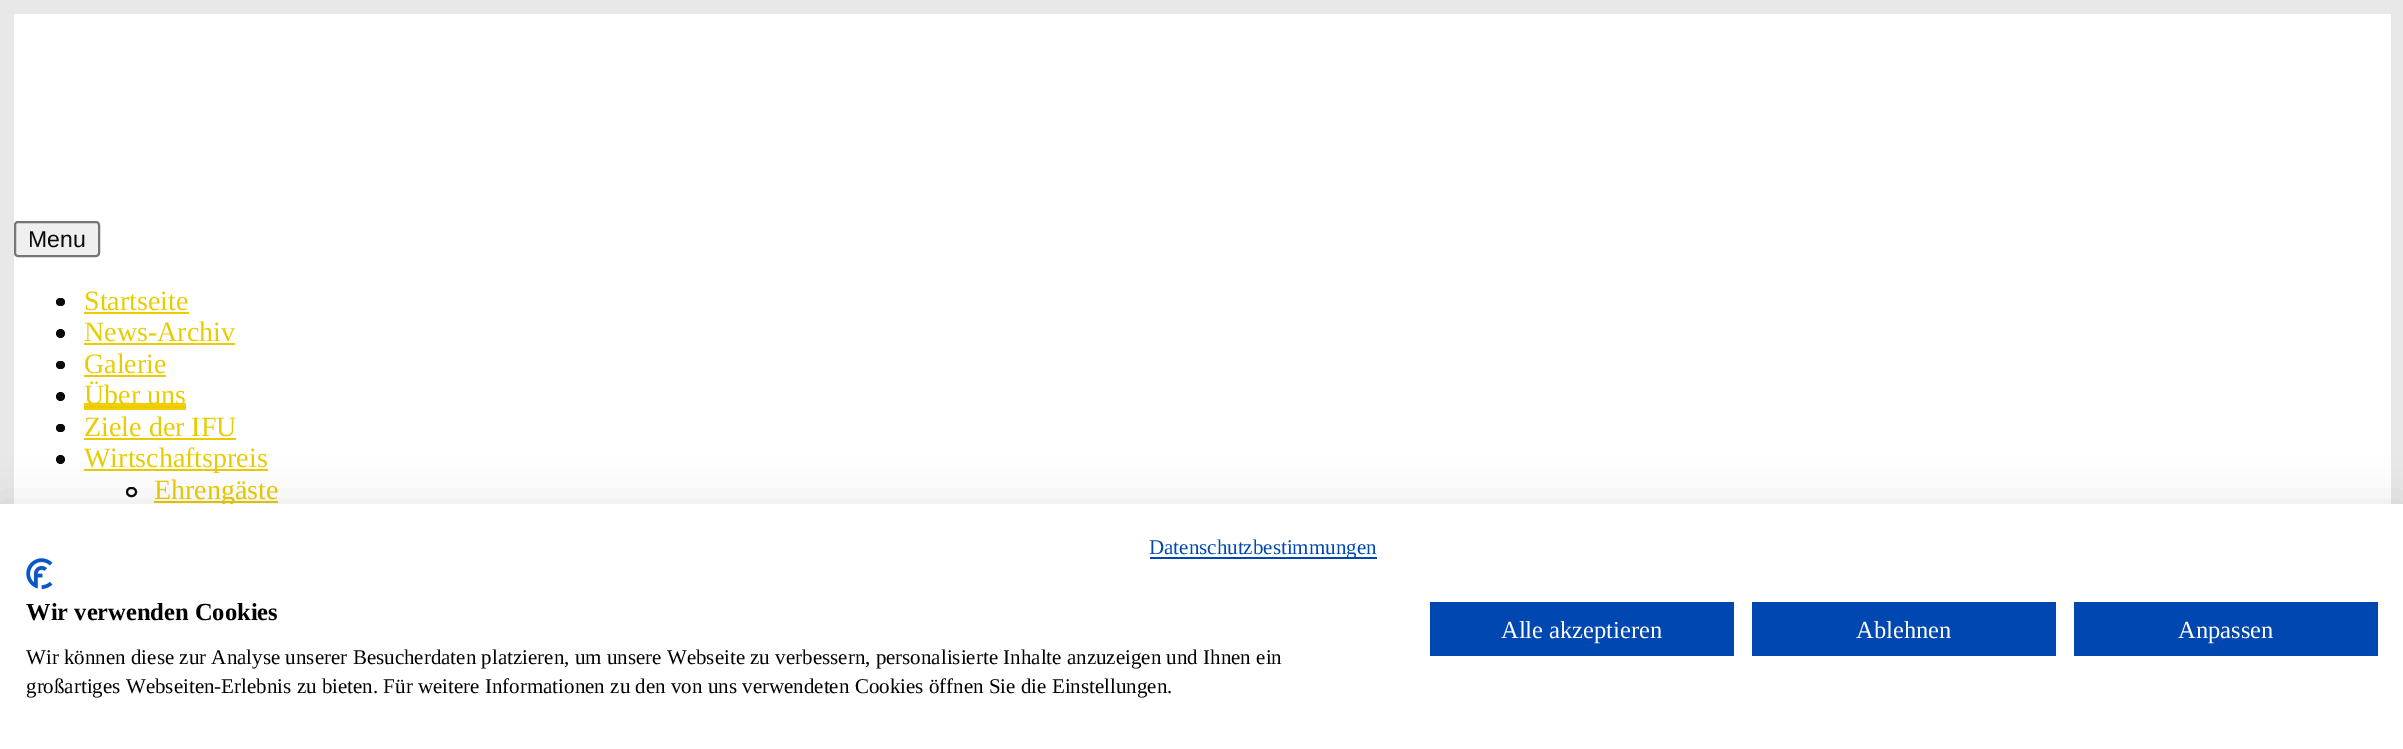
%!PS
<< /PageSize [2403 749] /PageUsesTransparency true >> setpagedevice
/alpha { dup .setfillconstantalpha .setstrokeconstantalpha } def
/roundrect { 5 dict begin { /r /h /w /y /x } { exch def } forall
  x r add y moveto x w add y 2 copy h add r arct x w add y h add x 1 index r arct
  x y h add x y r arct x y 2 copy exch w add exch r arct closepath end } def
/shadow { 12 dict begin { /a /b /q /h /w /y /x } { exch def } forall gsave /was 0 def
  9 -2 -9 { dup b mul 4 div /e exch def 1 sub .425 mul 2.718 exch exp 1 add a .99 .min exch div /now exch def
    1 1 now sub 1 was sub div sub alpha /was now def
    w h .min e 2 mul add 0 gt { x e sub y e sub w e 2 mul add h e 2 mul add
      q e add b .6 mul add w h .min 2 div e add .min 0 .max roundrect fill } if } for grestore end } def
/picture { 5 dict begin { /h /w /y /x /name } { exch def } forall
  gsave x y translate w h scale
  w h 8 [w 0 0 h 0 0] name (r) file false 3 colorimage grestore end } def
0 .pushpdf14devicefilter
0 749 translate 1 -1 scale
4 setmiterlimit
0.91 setgray
0 0 2403 749 rectfill
1 setgray
14 14 2377 490 rectfill
0.937 setgray
15 222 84 34 3 roundrect gsave fill grestore
0.463 setgray
2 setlinewidth
stroke
/LiberationSans-Regular [23 0 0 -23 0 0] selectfont
0.039 setgray
28 247 moveto (Menu) show
56 298 9 8 4 roundrect fill
/LiberationSerif-Regular [28 0 0 -28 0 0] selectfont
0.91 0.8 0 setrgbcolor
84 310 moveto (Startseite) show
84 312 105 2 rectfill
0.039 setgray
newpath 60.5 333.5 4.5 0 360 arc closepath fill
0.91 0.8 0 setrgbcolor
84 341 moveto (News-Archiv) show
84 343 151 2 rectfill
0.039 setgray
56 361 9 8 4 roundrect fill
0.91 0.8 0 setrgbcolor
84 373 moveto (Galerie) show
84 375 82 2 rectfill
0.039 setgray
newpath 60.5 396.5 4.5 0 360 arc closepath fill
0.949 0.808 0.008 setrgbcolor
84 403 102 7 rectfill
0.91 0.8 0 setrgbcolor
84 404 moveto (Über uns) show
84 406 102 2 rectfill
0.039 setgray
56 424 9 8 4 roundrect fill
0.91 0.8 0 setrgbcolor
84 436 moveto (Ziele der IFU) show
84 438 152 2 rectfill
0.039 setgray
newpath 60.5 459.5 4.5 0 360 arc closepath fill
0.91 0.8 0 setrgbcolor
84 469 184 2 rectfill
84 467 moveto (Wirtschaftspreis) show
0.039 setgray
127 488 9 8 4 roundrect stroke
0.91 0.8 0 setrgbcolor
154 501 124 2 rectfill
154 499 moveto (Ehrengäste) show
0 setgray
0 504 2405 245 0 21 0.1 shadow
1 setgray
0 504 2403 245 rectfill
0 0.278 0.698 setrgbcolor
1150 557 227 2 rectfill
/LiberationSerif-Regular [21 0 0 -21 0 0] selectfont
1149 554 moveto (Datenschutzbestimmungen) show
(img1.rgb) 26 558 27 31 picture
/LiberationSerif-Bold [24.5 0 0 -24.5 0 0] selectfont
0 setgray
26 620 moveto (Wir verwenden Cookies) show
/LiberationSerif-Regular [21 0 0 -21 0 0] selectfont
26 664 moveto (Wir können diese zur Analyse unserer Besucherdaten platzieren, um unsere Webseite zu verbessern, personalisierte Inhalte anzuzeigen und Ihnen ein) show
26 693 moveto (großartiges Webseiten-Erlebnis zu bieten. Für weitere Informationen zu den von uns verwendeten Cookies öffnen Sie die Einstellungen.) show
0 0.278 0.698 setrgbcolor
1430 602 304 54 rectfill
/LiberationSerif-Regular [24.5 0 0 -24.5 0 0] selectfont
1 setgray
1501 638 moveto (Alle akzeptieren) show
0 0.278 0.698 setrgbcolor
1752 602 304 54 rectfill
1 setgray
1856 638 moveto (Ablehnen) show
0 0.278 0.698 setrgbcolor
2074 602 304 54 rectfill
1 setgray
2178 638 moveto (Anpassen) show
.poppdf14devicefilter showpage
